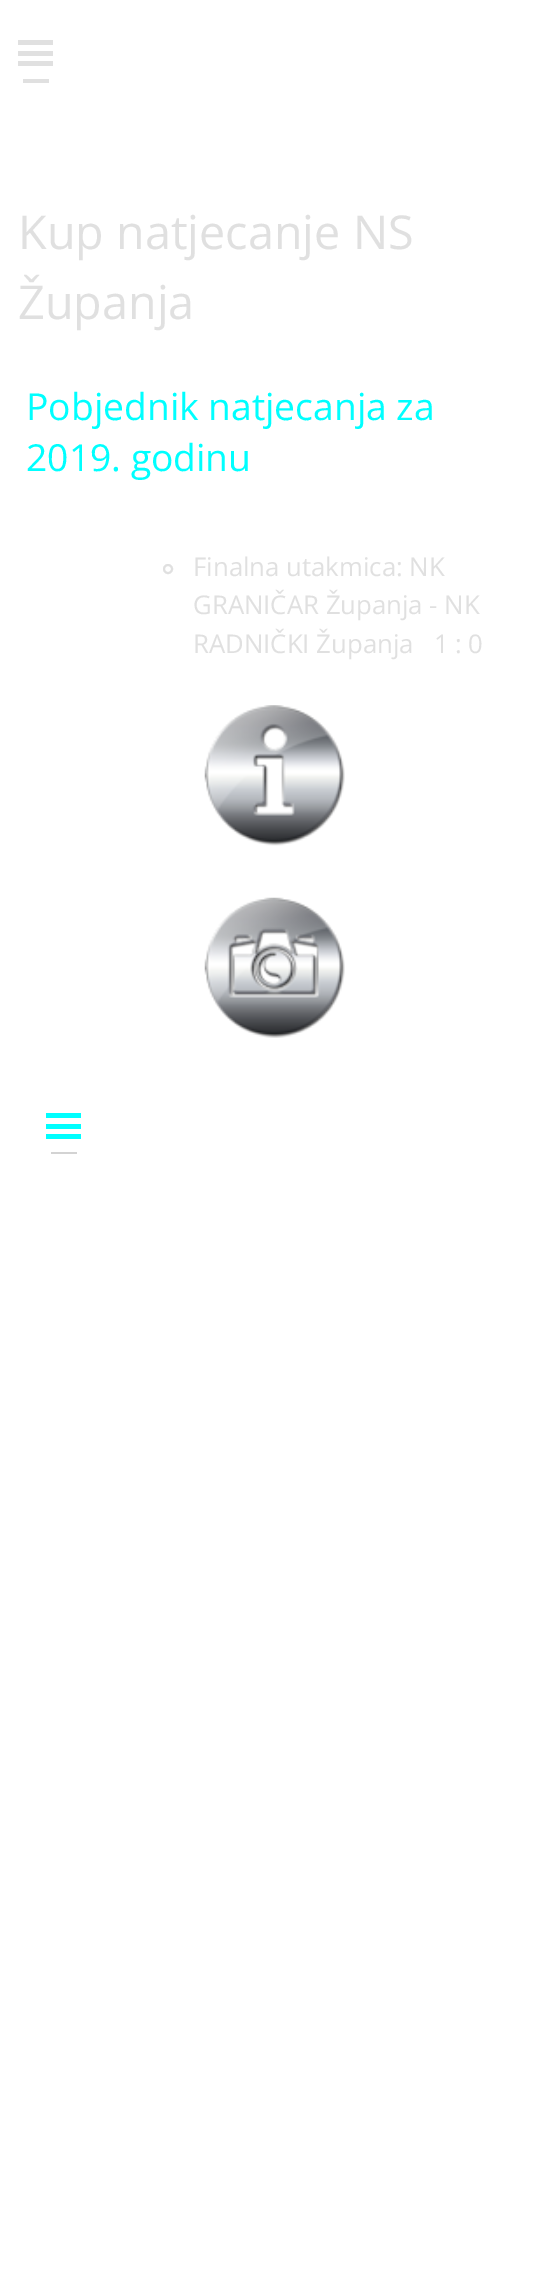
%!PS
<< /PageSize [548 2294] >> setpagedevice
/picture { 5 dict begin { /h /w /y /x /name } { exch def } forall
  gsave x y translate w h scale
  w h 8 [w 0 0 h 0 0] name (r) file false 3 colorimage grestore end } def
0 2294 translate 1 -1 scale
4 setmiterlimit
1 setgray
0 0 548 2294 rectfill
0.878 setgray
23 79 26 4 rectfill
18 40 35 5 rectfill
18 51 35 5 rectfill
18 61 35 5 rectfill
/OpenSans-Regular [46.75 0 0 -46.75 0 0] selectfont
18 249 moveto (Kup natjecanje NS) show
18 319 moveto (Županja) show
/OpenSans-Regular [37.25 0 0 -37.25 0 0] selectfont
0 1 1 setrgbcolor
26 420 moveto (Pobjednik natjecanja za) show
26 471 moveto (2019. godinu) show
0.878 setgray
2 setlinewidth
newpath 168 569 4 0 360 arc closepath stroke
/OpenSans-Regular [25.75 0 0 -25.75 0 0] selectfont
193 576 moveto (Finalna utakmica: NK) show
193 614 moveto (GRANIČAR Županja - NK) show
193 653 moveto (RADNIČKI Županja   1 : 0) show
(img1.rgb) 204 705 141 141 picture
(img2.rgb) 204 897 141 141 picture
0.827 setgray
51 1152 26 2 rectfill
0 1 1 setrgbcolor
46 1113 35 5 rectfill
46 1124 35 5 rectfill
46 1134 35 5 rectfill
showpage
